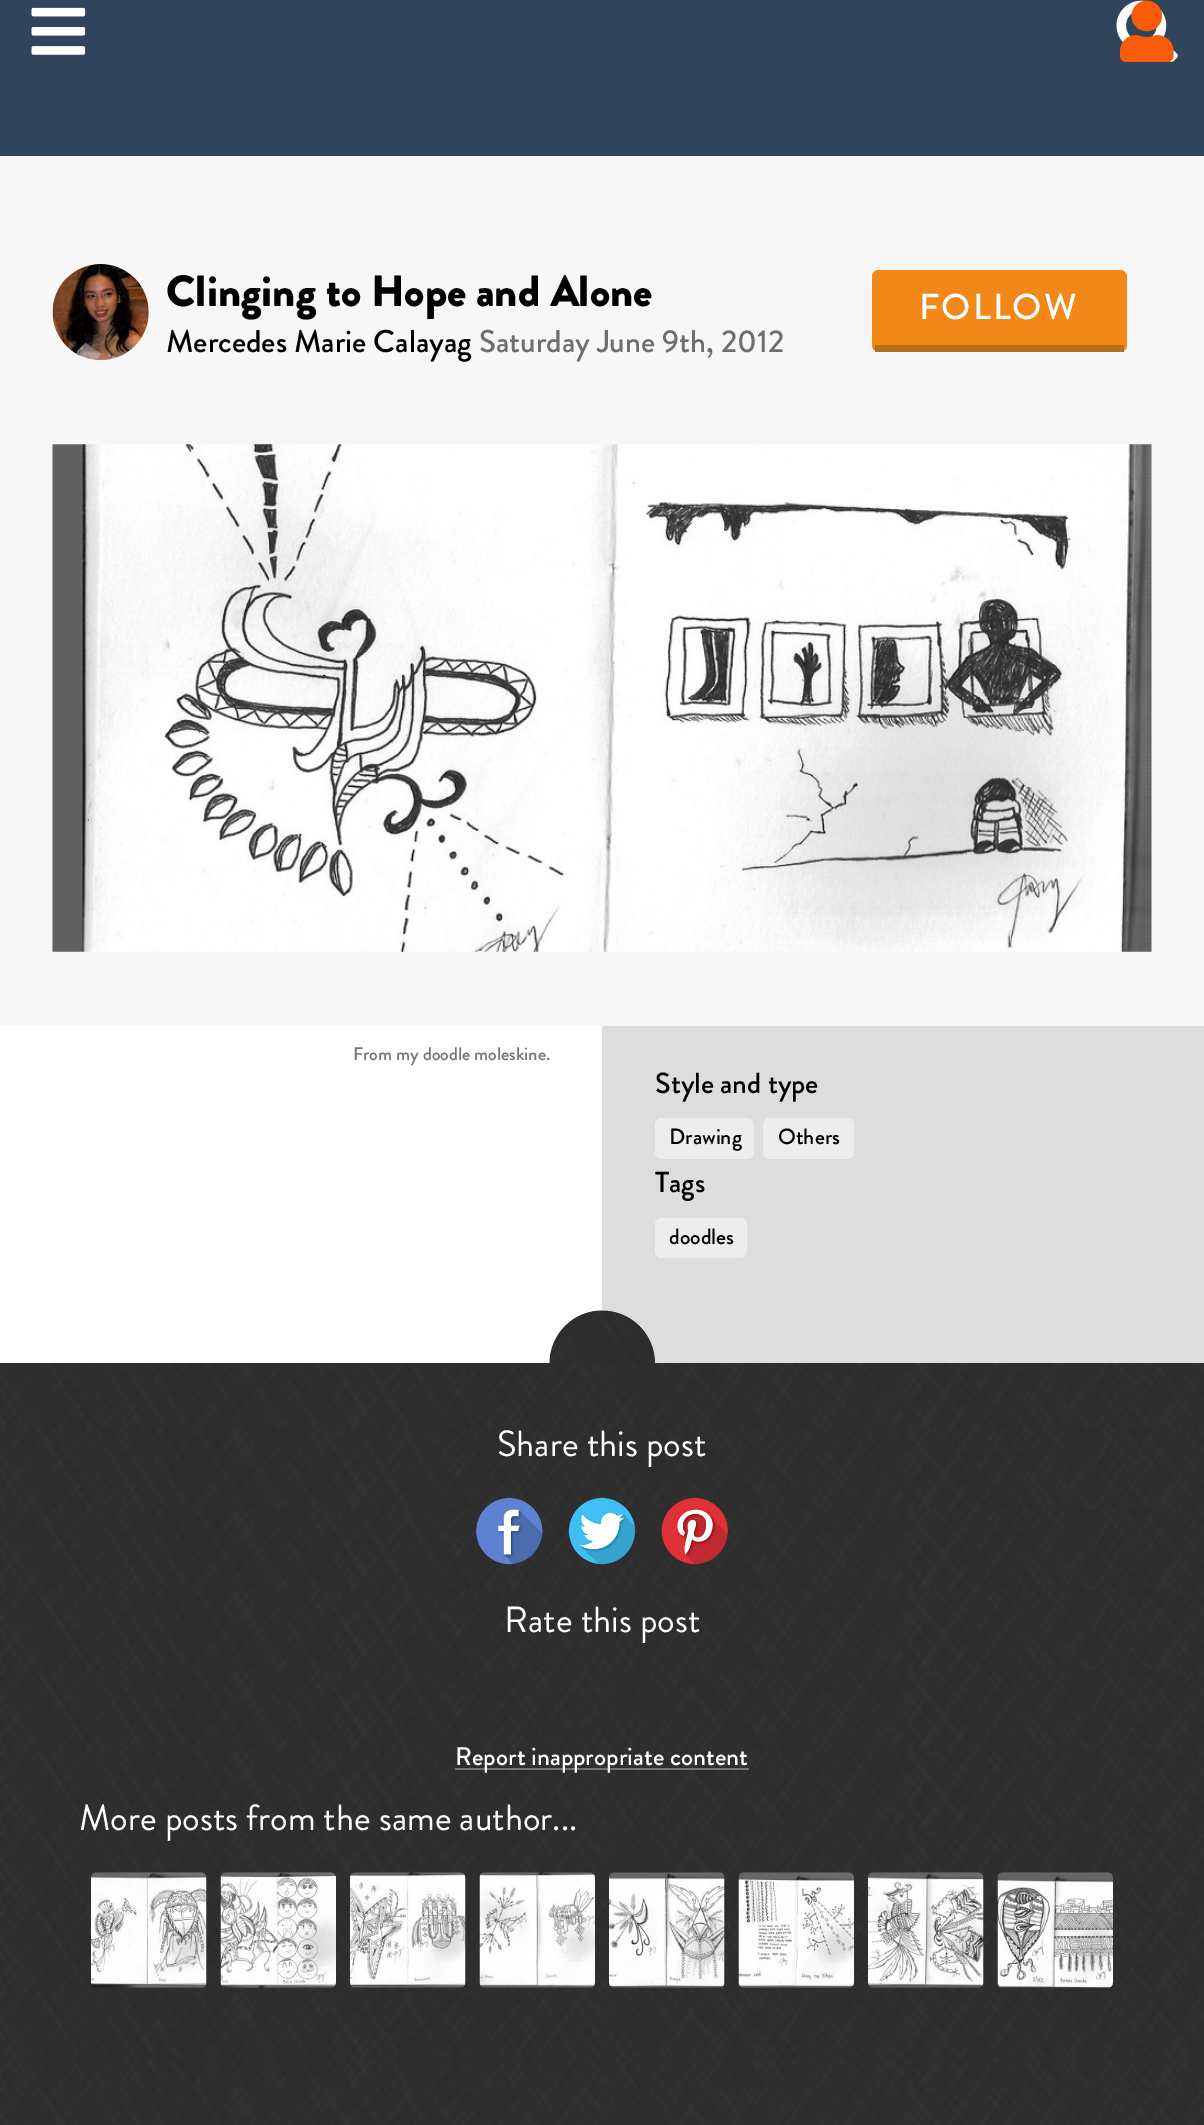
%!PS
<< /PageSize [1204 2125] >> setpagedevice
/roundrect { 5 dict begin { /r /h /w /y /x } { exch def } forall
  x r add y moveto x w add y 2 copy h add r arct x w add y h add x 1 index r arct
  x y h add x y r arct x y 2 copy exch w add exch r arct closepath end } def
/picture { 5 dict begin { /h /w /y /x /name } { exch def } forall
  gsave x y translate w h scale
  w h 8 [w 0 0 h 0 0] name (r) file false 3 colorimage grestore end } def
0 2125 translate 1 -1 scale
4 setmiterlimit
0.188 0.267 0.361 setrgbcolor
0 0 1204 2125 rectfill
(img1.rgb) 1116 0 62 62 picture
(img2.rgb) 31 7 55 48 picture
(img3.rgb) 1120 0 54 62 picture
1 setgray
0 1026 1204 1032 rectfill
0.969 setgray
0 156 1204 870 rectfill
(img4.rgb) 52 264 97 97 picture
/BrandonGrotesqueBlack-Black [43.75 0 0 -43.75 0 0] selectfont
0 setgray
166 306 moveto (Clinging to Hope and Alone) show
/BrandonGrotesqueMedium-Medium [31.5 0 0 -31.5 0 0] selectfont
166 352 moveto (Mercedes Marie Calayag) show
0.427 0.431 0.443 setrgbcolor
479 352 moveto (Saturday June 9th, 2012) show
0.945 0.533 0.094 setrgbcolor
872 270 255 82 7 roundrect fill
0.714 0.431 0.102 setrgbcolor
875 345 249 7 rectfill
/BrandonGrotesqueMedium-Medium [36 0 0 -36 0 0] selectfont
1 setgray
919 319 moveto 2 0 (FOLLOW) ashow
(img5.rgb) 52 444 1100 508 picture
/BrandonGrotesqueMedium-Medium [18.25 0 0 -18.25 0 0] selectfont
0.451 setgray
353 1060 moveto (From my doodle moleskine.) show
0.867 setgray
602 1026 602 337 rectfill
/BrandonGrotesqueMedium-Medium [29 0 0 -29 0 0] selectfont
0 setgray
655 1093 moveto (Style and type) show
0.929 setgray
655 1118 99 41 7 roundrect fill
/BrandonGrotesqueMedium-Medium [22 0 0 -22 0 0] selectfont
0 setgray
669 1144 moveto (Drawing) show
0.929 setgray
763 1118 91 41 7 roundrect fill
0 setgray
778 1144 moveto (Others) show
/BrandonGrotesqueMedium-Medium [29 0 0 -29 0 0] selectfont
655 1192 moveto (Tags) show
0.929 setgray
655 1218 92 40 7 roundrect fill
/BrandonGrotesqueMedium-Medium [22 0 0 -22 0 0] selectfont
0 setgray
669 1244 moveto (doodles) show
(img6.rgb) 0 1363 1204 695 picture
0.169 setgray
newpath 602 1311 moveto 603 1311 lineto 631.5 1311 655 1334.5 655 1363 curveto 550 1363 lineto 550 1334.5 573.5 1311 602 1311 curveto closepath fill
(img7.rgb) 549 1310 106 53 picture
/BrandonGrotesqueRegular-Regular [36.4 0 0 -36.4 0 0] selectfont
1 setgray
497 1456 moveto (Share this post) show
(img8.rgb) 476 1497 67 68 picture
(img9.rgb) 568 1497 68 68 picture
(img10.rgb) 661 1497 67 68 picture
504 1632 moveto (Rate this post) show
0.451 setgray
455 1768 294 2 rectfill
/BrandonGrotesqueMedium-Medium [25.5 0 0 -25.5 0 0] selectfont
1 setgray
455 1765 moveto (Report inappropriate content) show
/BrandonGrotesqueRegular-Regular [36.4 0 0 -36.4 0 0] selectfont
79 1830 moveto (More posts from the same author...) show
(img11.rgb) 91 1872 116 116 picture
(img12.rgb) 220 1872 116 116 picture
(img13.rgb) 350 1872 116 116 picture
(img14.rgb) 479 1872 116 116 picture
(img15.rgb) 609 1872 116 116 picture
(img16.rgb) 738 1872 116 116 picture
(img17.rgb) 868 1872 116 116 picture
(img18.rgb) 997 1872 116 116 picture
(img19.rgb) 0 2058 1204 67 picture
showpage
